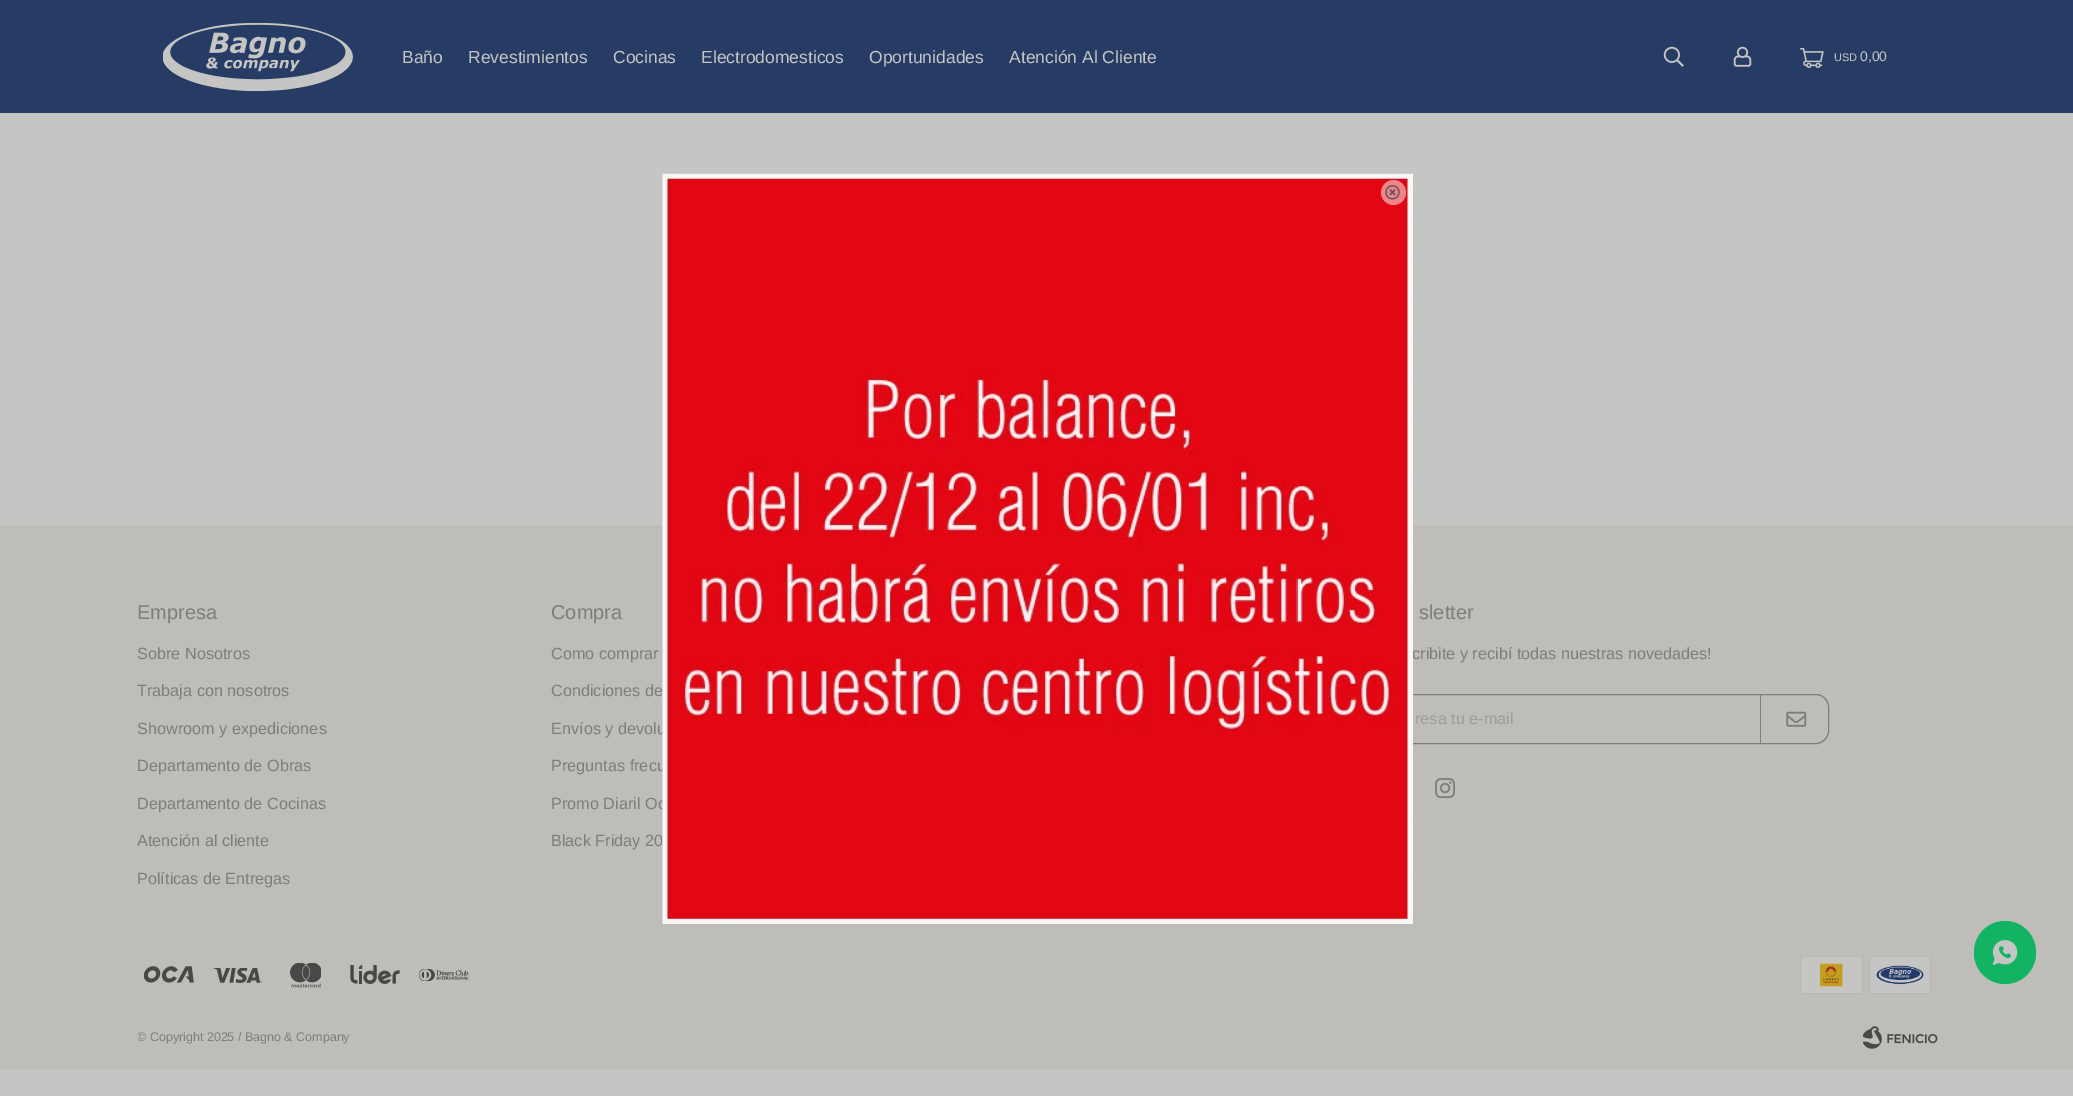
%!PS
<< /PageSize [2073 1096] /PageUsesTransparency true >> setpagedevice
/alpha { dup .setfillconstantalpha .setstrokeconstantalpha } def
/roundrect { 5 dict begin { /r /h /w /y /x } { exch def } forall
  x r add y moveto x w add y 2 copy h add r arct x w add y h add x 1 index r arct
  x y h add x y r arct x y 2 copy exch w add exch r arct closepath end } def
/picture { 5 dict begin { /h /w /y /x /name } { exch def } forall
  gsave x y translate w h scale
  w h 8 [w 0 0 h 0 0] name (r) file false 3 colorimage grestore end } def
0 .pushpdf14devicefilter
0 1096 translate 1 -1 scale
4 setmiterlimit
0.773 0.773 0.769 setrgbcolor
0 0 2073 1096 rectfill
0.149 0.235 0.396 setrgbcolor
0 0 2073 113 rectfill
(img1.rgb) 163 23 190 68 picture
/LiberationSans-Regular [17.5 0 0 -17.5 0 0] selectfont
0.773 0.773 0.769 setrgbcolor
402 63 moveto (Baño) show
468 63 moveto (Revestimientos) show
613 63 moveto (Cocinas) show
701 63 moveto (Electrodomesticos) show
869 63 moveto (Oportunidades) show
1009 63 moveto (Atención Al Cliente) show
(img2.rgb) 1663 46 21 21 picture
(img3.rgb) 1733 46 19 21 picture
(img4.rgb) 1800 48 24 20 picture
/LiberationSans-Regular [11 0 0 -11 0 0] selectfont
1834 61 moveto (USD) show
/LiberationSans-Regular [14 0 0 -14 0 0] selectfont
1860 61 moveto (0,00) show
0.745 0.741 0.722 setrgbcolor
0 525 2073 544 rectfill
/LiberationSans-Regular [20 0 0 -20 0 0] selectfont
0.49 setgray
137 619 moveto (Empresa) show
/LiberationSans-Regular [16.25 0 0 -16.25 0 0] selectfont
137 659 moveto (Sobre Nosotros) show
137 696 moveto (Trabaja con nosotros) show
137 734 moveto (Showroom y expediciones) show
137 771 moveto (Departamento de Obras) show
137 809 moveto (Departamento de Cocinas) show
137 846 moveto (Atención al cliente) show
137 884 moveto (Políticas de Entregas) show
/LiberationSans-Regular [20 0 0 -20 0 0] selectfont
551 619 moveto (Compra) show
/LiberationSans-Regular [16.25 0 0 -16.25 0 0] selectfont
551 659 moveto (Como comprar) show
551 696 moveto (Condiciones de) show
551 734 moveto (Envíos y devolu) show
551 771 moveto (Preguntas frecu) show
551 809 moveto (Promo Diaril Oc) show
551 846 moveto (Black Friday 20) show
/LiberationSans-Regular [20 0 0 -20 0 0] selectfont
1419 619 moveto (sletter) show
/LiberationSans-Regular [16.25 0 0 -16.25 0 0] selectfont
1412 659 moveto (cribite y recibí todas nuestras novedades!) show
1379.5 694.5 449 49 12.5 roundrect stroke
0.62 0.616 0.608 setrgbcolor
1415 724 moveto (resa tu e-mail) show
0.49 setgray
1760 694 1 50 rectfill
(img5.rgb) 1786 711 21 16 picture
(img6.rgb) 1435 778 20 20 picture
(img7.rgb) 144 966 50 17 picture
(img8.rgb) 213 968 50 15 picture
(img9.rgb) 290 963 31 25 picture
(img10.rgb) 350 965 50 19 picture
(img11.rgb) 419 969 50 12 picture
0.773 0.773 0.769 setrgbcolor
newpath 1800.5 956.5 moveto 1862.5 956.5 lineto 1862.5 993.5 lineto 1800.5 993.5 lineto closepath gsave fill grestore
0.722 setgray
stroke
(img12.rgb) 1820 963 23 24 picture
0.773 0.773 0.769 setrgbcolor
newpath 1869.5 956.5 moveto 1930.5 956.5 lineto 1930.5 993.5 lineto 1869.5 993.5 lineto closepath gsave fill grestore
0.722 setgray
stroke
(img13.rgb) 1876 965 48 20 picture
gsave
138 1006 1800 63 rectclip
/LiberationSans-Regular [12.5 0 0 -12.5 0 0] selectfont
0.49 setgray
137 1041 moveto (© Copyright 2025 / Bagno & Company) show
grestore
(img14.rgb) 1863 1026 75 23 picture
(img15.rgb) 662 173 751 751 picture
0.5 alpha
1 setgray
newpath 1393.5 192.5 12.5 0 360 arc closepath fill
1 alpha
(img16.rgb) 1385 185 15 15 picture
0.075 0.702 0.392 setrgbcolor
1974 921 62 63 31 roundrect fill
(img17.rgb) 1992 940 26 25 picture
.poppdf14devicefilter showpage
